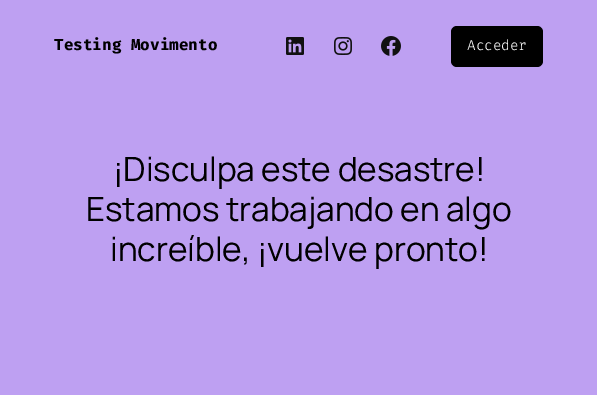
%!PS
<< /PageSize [597 395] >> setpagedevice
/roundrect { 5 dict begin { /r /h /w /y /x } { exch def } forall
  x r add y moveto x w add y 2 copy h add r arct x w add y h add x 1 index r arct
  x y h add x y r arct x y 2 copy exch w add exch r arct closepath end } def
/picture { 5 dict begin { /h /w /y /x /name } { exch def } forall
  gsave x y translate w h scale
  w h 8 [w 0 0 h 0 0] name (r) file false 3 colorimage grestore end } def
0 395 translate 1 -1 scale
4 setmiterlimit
0.745 0.627 0.949 setrgbcolor
0 0 597 395 rectfill
/FiraCode-Bold [15.6 0 0 -15.6 0 0] selectfont
0 setgray
54 50 moveto (Testing Movimento) show
(img1.rgb) 286 37 18 18 picture
(img2.rgb) 334 37 18 18 picture
(img3.rgb) 381 36 20 20 picture
451 26 92 41 6 roundrect fill
/FiraCode-Light [14 0 0 -14 0 0] selectfont
1 setgray
467 50 moveto -0.1 0 (Acceder) ashow
/Manrope-Regular [33.4 0 0 -33.4 0 0] selectfont
0 setgray
113 181 moveto -0.1 0 (¡Disculpa este desastre!) ashow
86 221 moveto -0.1 0 (Estamos trabajando en algo) ashow
110 261 moveto -0.1 0 (increíble, ¡vuelve pronto!) ashow
showpage
